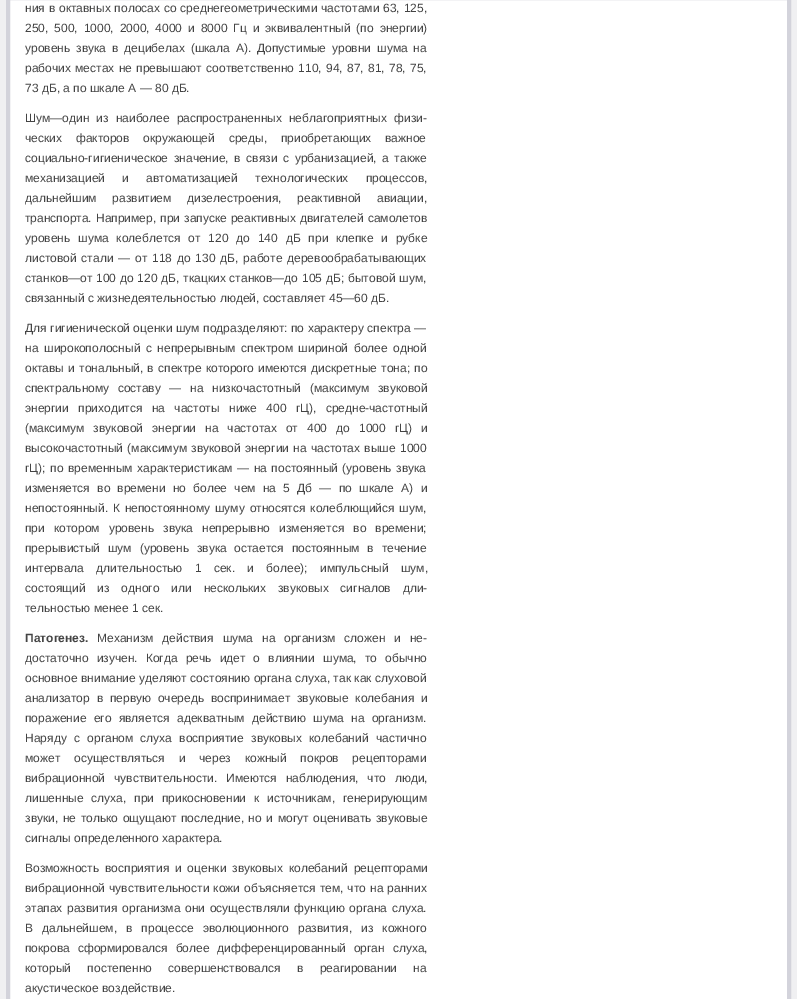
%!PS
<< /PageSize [797 999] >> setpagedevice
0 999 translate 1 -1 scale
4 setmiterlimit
0.941 0.941 0.949 setrgbcolor
0 0 797 999 rectfill
1 setgray
newpath 8 -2 moveto 789 -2 lineto 789 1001 lineto 8 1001 lineto closepath gsave fill grestore
0.827 0.827 0.859 setrgbcolor
4 setlinewidth
stroke
/LiberationSans-Regular [12 0 0 -12 0 0] selectfont
0.267 setgray
25 12 moveto 0.5 0 32 (ния в октавных полосах со среднегеометрическими частотами 63, 125,) widthshow
25 32 moveto 2.6 0 32 (250, 500, 1000, 2000, 4000 и 8000 Гц и эквивалентный \(по энергии\)) widthshow
25 52 moveto 2.6 0 32 (уровень звука в децибелах \(шкала А\). Допустимые уровни шума на) widthshow
25 72 moveto 1 0 32 (рабочих местах не превышают соответственно 110, 94, 87, 81, 78, 75,) widthshow
25 92 moveto (73 дБ, а по шкале А — 80 дБ.) show
25 122 moveto 3.75 0 32 (Шум—один из наиболее распространенных неблагоприятных физи-) widthshow
25 142 moveto 10.5 0 32 (ческих факторов окружающей среды, приобретающих важное) widthshow
25 162 moveto 2.25 0 32 (социально-гигиеническое значение, в связи с урбанизацией, а также) widthshow
25 182 moveto 14 0 32 (механизацией и автоматизацией технологических процессов,) widthshow
25 202 moveto 12.5 0 32 (дальнейшим развитием дизелестроения, реактивной авиации,) widthshow
25 222 moveto 0.75 0 32 (транспорта. Например, при запуске реактивных двигателей самолетов) widthshow
25 242 moveto 4.5 0 32 (уровень шума колеблется от 120 до 140 дБ при клепке и рубке) widthshow
25 262 moveto 1.5 0 32 (листовой стали — от 118 до 130 дБ, работе деревообрабатывающих) widthshow
25 282 moveto 0.5 0 32 (станков—от 100 до 120 дБ, ткацких станков—до 105 дБ; бытовой шум,) widthshow
25 302 moveto (связанный с жизнедеятельностью людей, составляет 45—60 дБ.) show
25 332 moveto 0.25 0 32 (Для гигиенической оценки шум подразделяют: по характеру спектра —) widthshow
25 352 moveto 2.25 0 32 (на широкополосный с непрерывным спектром шириной более одной) widthshow
25 372 moveto 0.9 0 32 (октавы и тональный, в спектре которого имеются дискретные тона; по) widthshow
25 392 moveto 5.25 0 32 (спектральному составу — на низкочастотный \(максимум звуковой) widthshow
25 412 moveto 6 0 32 (энергии приходится на частоты ниже 400 гЦ\), средне-частотный) widthshow
25 432 moveto 5.75 0 32 (\(максимум звуковой энергии на частотах от 400 до 1000 гЦ\) и) widthshow
25 452 moveto 1 0 32 (высокочастотный \(максимум звуковой энергии на частотах выше 1000) widthshow
25 472 moveto 1.25 0 32 (гЦ\); по временным характеристикам — на постоянный \(уровень звука) widthshow
25 492 moveto 3.9 0 32 (изменяется во времени но более чем на 5 Дб — по шкале А\) и) widthshow
25 512 moveto 1.5 0 32 (непостоянный. К непостоянному шуму относятся колеблющийся шум,) widthshow
25 532 moveto 5.75 0 32 (при котором уровень звука непрерывно изменяется во времени;) widthshow
25 552 moveto 4.5 0 32 (прерывистый шум \(уровень звука остается постоянным в течение) widthshow
25 572 moveto 9 0 32 (интервала длительностью 1 сек. и более\); импульсный шум,) widthshow
25 592 moveto 8.5 0 32 (состоящий из одного или нескольких звуковых сигналов дли-) widthshow
25 612 moveto (тельностью менее 1 сек.) show
/LiberationSans-Bold [12 0 0 -12 0 0] selectfont
25 642 moveto (Патогенез.) show
/LiberationSans-Regular [12 0 0 -12 0 0] selectfont
97 642 moveto 5.5 0 32 (Механизм действия шума на организм сложен и не-) widthshow
25 662 moveto 4.75 0 32 (достаточно изучен. Когда речь идет о влиянии шума, то обычно) widthshow
25 682 moveto 0.25 0 32 (основное внимание уделяют состоянию органа слуха, так как слуховой) widthshow
25 702 moveto 3.5 0 32 (анализатор в первую очередь воспринимает звуковые колебания и) widthshow
25 722 moveto 4 0 32 (поражение его является адекватным действию шума на организм.) widthshow
25 742 moveto 4 0 32 (Наряду с органом слуха восприятие звуковых колебаний частично) widthshow
25 762 moveto 10.5 0 32 (может осуществляться и через кожный покров рецепторами) widthshow
25 782 moveto 5.5 0 32 (вибрационной чувствительности. Имеются наблюдения, что люди,) widthshow
25 802 moveto 4.5 0 32 (лишенные слуха, при прикосновении к источникам, генерирующим) widthshow
25 822 moveto 1.25 0 32 (звуки, не только ощущают последние, но и могут оценивать звуковые) widthshow
25 842 moveto (сигналы определенного характера.) show
25 872 moveto 2.5 0 32 (Возможность восприятия и оценки звуковых колебаний рецепторами) widthshow
25 892 moveto 0.75 0 32 (вибрационной чувствительности кожи объясняется тем, что на ранних) widthshow
25 912 moveto 1.25 0 32 (этапах развития организма они осуществляли функцию органа слуха.) widthshow
25 932 moveto 5.75 0 32 (В дальнейшем, в процессе эволюционного развития, из кожного) widthshow
25 952 moveto 4.5 0 32 (покрова сформировался более дифференцированный орган слуха,) widthshow
25 972 moveto 13 0 32 (который постепенно совершенствовался в реагировании на) widthshow
25 992 moveto (акустическое воздействие.) show
showpage
